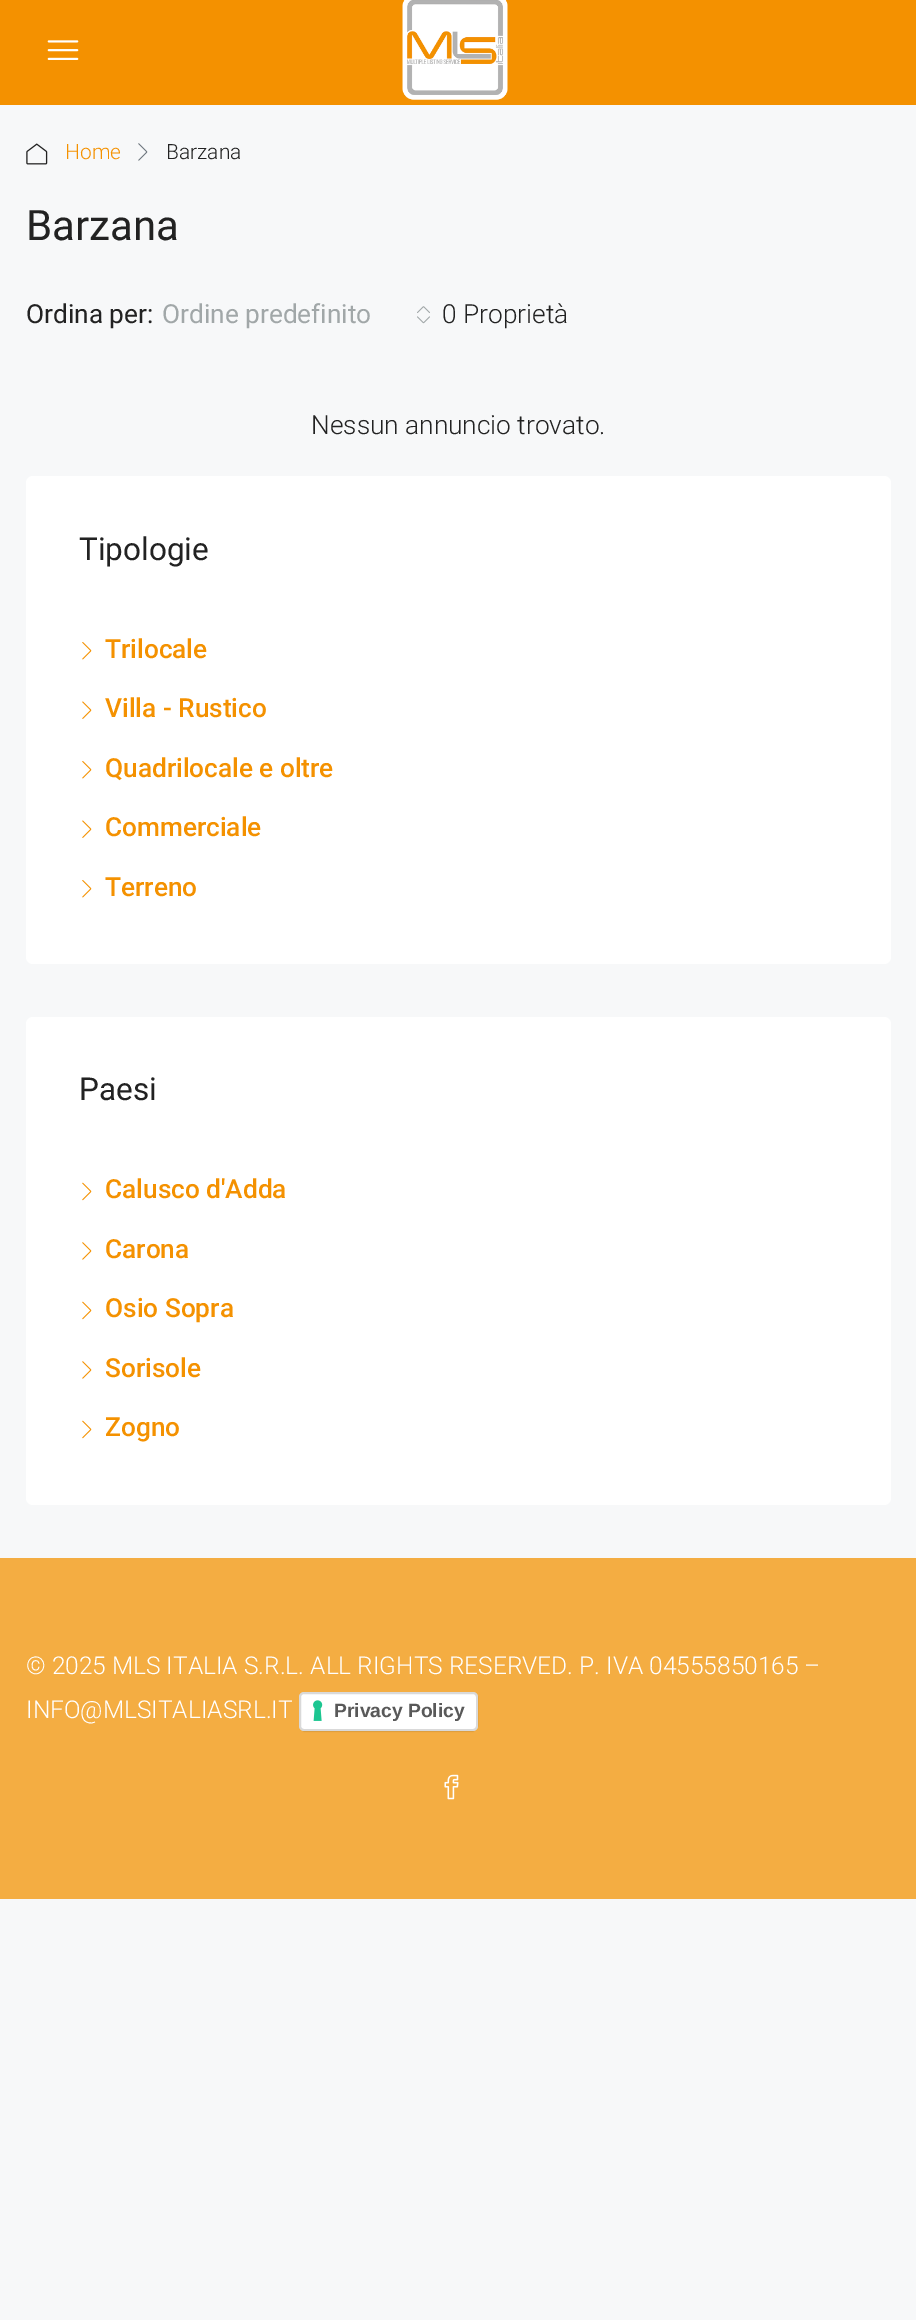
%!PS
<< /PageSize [916 2320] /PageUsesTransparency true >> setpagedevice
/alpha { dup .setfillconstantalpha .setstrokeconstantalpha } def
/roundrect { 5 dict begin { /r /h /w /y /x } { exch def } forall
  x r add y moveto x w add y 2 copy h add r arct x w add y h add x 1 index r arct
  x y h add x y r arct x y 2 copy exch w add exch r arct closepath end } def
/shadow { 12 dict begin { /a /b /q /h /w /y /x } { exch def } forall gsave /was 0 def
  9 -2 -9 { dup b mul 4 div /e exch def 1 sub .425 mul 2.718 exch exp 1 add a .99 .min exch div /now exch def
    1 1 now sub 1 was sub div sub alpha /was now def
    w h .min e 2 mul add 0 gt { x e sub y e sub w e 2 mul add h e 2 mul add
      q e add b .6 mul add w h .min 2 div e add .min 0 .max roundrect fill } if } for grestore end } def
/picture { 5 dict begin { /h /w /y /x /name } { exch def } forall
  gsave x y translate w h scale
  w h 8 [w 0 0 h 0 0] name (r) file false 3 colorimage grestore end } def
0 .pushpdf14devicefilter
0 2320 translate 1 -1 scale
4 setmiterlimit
0.969 0.973 0.976 setrgbcolor
0 0 916 2320 rectfill
0.957 0.569 0 setrgbcolor
0 0 916 105 rectfill
(img1.rgb) 47 40 32 20 picture
(img2.rgb) 402 0 106 100 picture
(img3.rgb) 26 143 22 22 picture
/Roboto-Light [21 0 0 -21 0 0] selectfont
65 159 moveto (Home) show
(img4.rgb) 138 143 10 18 picture
0.133 setgray
166 159 moveto (Barzana) show
/Roboto-Regular [42 0 0 -42 0 0] selectfont
26 240 moveto (Barzana) show
/Roboto-Regular [26.25 0 0 -26.25 0 0] selectfont
26 323 moveto (Ordina per:) show
0.631 0.655 0.659 setrgbcolor
162 323 moveto (Ordine predefinito) show
(img5.rgb) 417 306 13 18 picture
/Roboto-Light [26.25 0 0 -26.25 0 0] selectfont
0.133 setgray
442 323 moveto (0 Proprietà) show
311 434 moveto (Nessun annuncio trovato.) show
1 setgray
26 476 865 488 7 roundrect fill
/Roboto-Regular [31.5 0 0 -31.5 0 0] selectfont
0.133 setgray
79 560 moveto (Tipologie) show
(img6.rgb) 82 642 10 18 picture
/Roboto-Medium [26.25 0 0 -26.25 0 0] selectfont
0.957 0.569 0 setrgbcolor
105 658 moveto (Trilocale) show
(img7.rgb) 82 701 10 18 picture
105 717 moveto (Villa - Rustico) show
(img6.rgb) 82 761 10 18 picture
105 777 moveto (Quadrilocale e oltre) show
(img7.rgb) 82 820 10 18 picture
105 836 moveto (Commerciale) show
(img6.rgb) 82 880 10 18 picture
105 896 moveto (Terreno) show
1 setgray
26 1017 865 488 7 roundrect fill
/Roboto-Regular [31.5 0 0 -31.5 0 0] selectfont
0.133 setgray
79 1100 moveto (Paesi) show
(img8.rgb) 82 1182 10 19 picture
/Roboto-Medium [26.25 0 0 -26.25 0 0] selectfont
0.957 0.569 0 setrgbcolor
105 1198 moveto (Calusco d'Adda) show
(img9.rgb) 82 1242 10 18 picture
105 1258 moveto (Carona) show
(img8.rgb) 82 1301 10 19 picture
105 1317 moveto (Osio Sopra) show
(img9.rgb) 82 1361 10 18 picture
105 1377 moveto (Sorisole) show
(img8.rgb) 82 1420 10 19 picture
105 1436 moveto (Zogno) show
0.957 0.678 0.259 setrgbcolor
0 1558 916 341 rectfill
/Roboto-Light [24.5 0 0 -24.5 0 0] selectfont
1 setgray
26 1674 moveto (© 2025 MLS ITALIA S.R.L. ALL RIGHTS RESERVED. P. IVA 04555850165 –) show
26 1718 moveto (INFO@MLSITALIASRL.IT) show
0 setgray
301 1696 175 35 4 1 0.15 shadow
1 setgray
299 1692 179 39 5 roundrect fill
(img10.rgb) 313 1700 10 21 picture
0.15 alpha
0 setgray
2 setlinewidth
300 1693 177 37 4 roundrect stroke
/LiberationSans-Bold [19.25 0 0 -19.25 0 0] selectfont
1 alpha
0.349 setgray
334 1717 moveto (Privacy Policy) show
(img11.rgb) 444 1774 15 26 picture
.poppdf14devicefilter showpage
